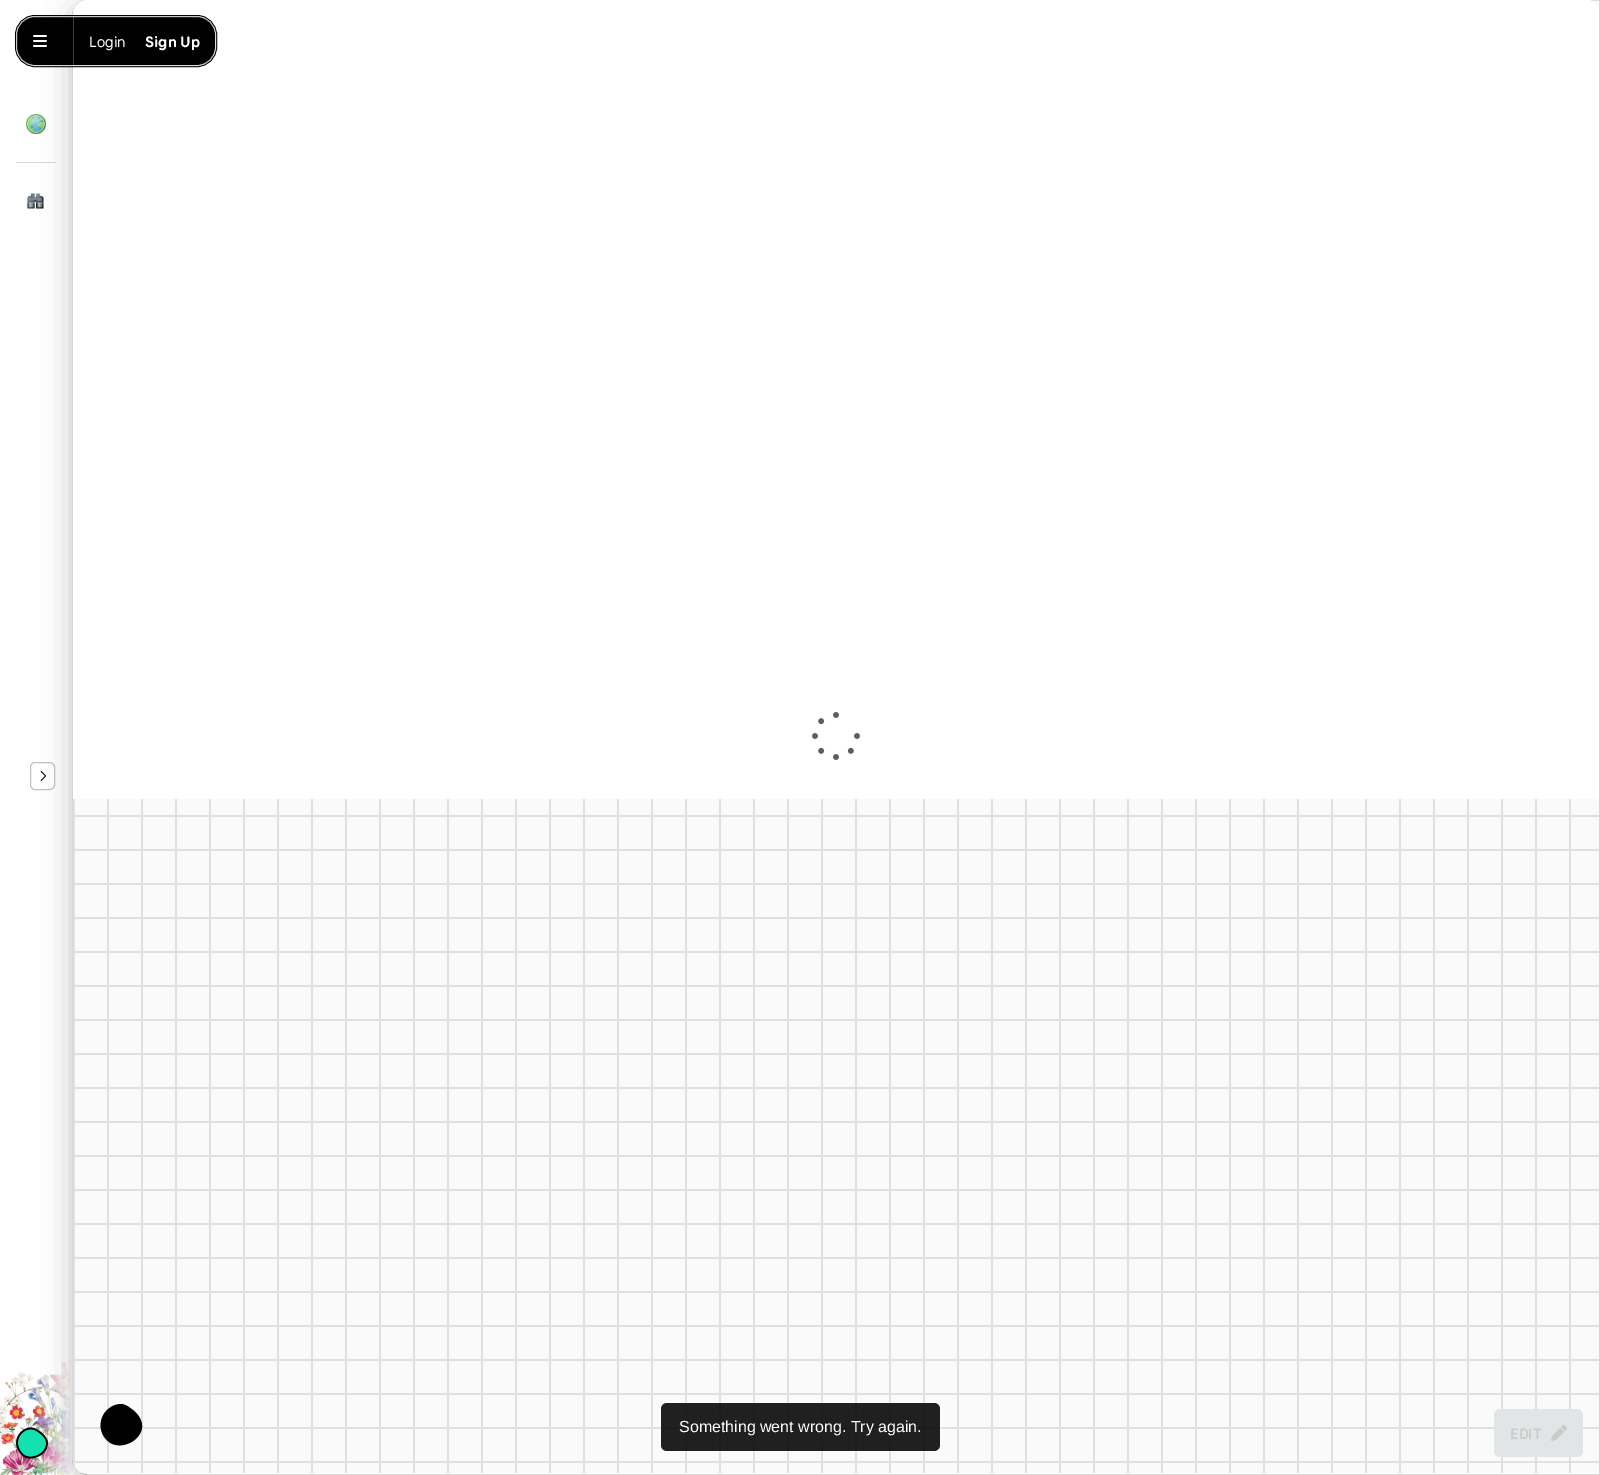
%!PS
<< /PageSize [1600 1475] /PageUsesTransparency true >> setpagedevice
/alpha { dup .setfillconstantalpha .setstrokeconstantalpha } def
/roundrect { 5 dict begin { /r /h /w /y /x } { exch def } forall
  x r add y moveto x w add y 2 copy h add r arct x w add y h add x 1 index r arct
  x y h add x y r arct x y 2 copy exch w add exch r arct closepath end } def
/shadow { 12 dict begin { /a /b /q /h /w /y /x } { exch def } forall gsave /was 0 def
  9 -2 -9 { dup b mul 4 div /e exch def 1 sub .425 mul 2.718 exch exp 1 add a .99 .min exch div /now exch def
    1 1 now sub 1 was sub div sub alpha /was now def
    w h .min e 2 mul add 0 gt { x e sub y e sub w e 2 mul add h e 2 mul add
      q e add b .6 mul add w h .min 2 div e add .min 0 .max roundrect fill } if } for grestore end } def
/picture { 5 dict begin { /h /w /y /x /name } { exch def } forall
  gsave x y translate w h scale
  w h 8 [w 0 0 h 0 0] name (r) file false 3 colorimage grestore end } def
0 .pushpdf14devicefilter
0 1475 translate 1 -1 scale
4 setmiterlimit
1 setgray
0 0 1600 1475 rectfill
(img2.rgb) 26 114 20 20 picture
0.839 setgray
16 162 40 1 rectfill
(img3.rgb) 26 193 18 16 picture
0.761 setgray
30.5 762.5 24 27 4.5 roundrect stroke
(img4.rgb) 40 771 6 10 picture
(img5.rgb) 0 1361 71 114 picture
(img6.rgb) 16 1427 32 32 picture
gsave
newpath 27 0 moveto 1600 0 lineto 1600 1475 lineto 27 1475 lineto closepath 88 -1 moveto 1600 -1 lineto 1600 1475 lineto 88 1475 lineto 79 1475 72 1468 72 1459 curveto 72 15 lineto 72 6 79 -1 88 -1 curveto closepath eoclip newpath
0.388 0.388 0.431 setrgbcolor
72 6 1528 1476 16 14.5 0.4 shadow
grestore
0.16 alpha
0 setgray
newpath 88 -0.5 moveto 1599.5 -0.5 lineto 1599.5 1474.5 lineto 88 1474.5 lineto 79.5 1474.5 72.5 1467.5 72.5 1459 curveto 72.5 15 lineto 72.5 6.5 79.5 -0.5 88 -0.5 curveto closepath stroke
1 alpha
(img7.rgb) 73 0 1526 1473 picture
(img8.rgb) 73 0 1526 1463 picture
gsave
73 -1 1526 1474 16 roundrect clip newpath
1 setgray
newpath 88 0 moveto 1599 0 lineto 1599 799 lineto 73 799 lineto 73 15 lineto 73 6.5 79.5 0 88 0 curveto closepath fill
grestore
15.5 15.5 201 51 19.5 roundrect stroke
0.32 alpha
16.5 16.5 199 49 18.5 roundrect stroke
1 alpha
17 17 198 48 18 roundrect fill
0.239 setgray
73 17 1 48 0.5 roundrect fill
0.56 alpha
1 setgray
16.5 16.5 199 49 18.5 roundrect stroke
1 alpha
(img1.rgb) 33 35 14 12 picture
/NationalPark-Regular [15 0 0 -15 0 0] selectfont
89 47 moveto (Login) show
/NationalPark-Bold [15 0 0 -15 0 0] selectfont
145 47 moveto (Sign Up) show
0 setgray
newpath 133 1410 moveto 158 1431 125 1454 109 1442 curveto 97 1433 98 1415 111 1407 curveto 114 1405 118 1404 122 1404 curveto 127 1405 130 1408 133 1410 curveto closepath fill
(img9.rgb) 812 712 48 48 picture
0.886 0.898 0.898 setrgbcolor
1494 1409 89 48 6 roundrect fill
/NationalPark-SemiBold [15 0 0 -15 0 0] selectfont
0.788 0.796 0.796 setrgbcolor
1510 1439 moveto (EDIT) show
(img10.rgb) 1551 1425 16 16 picture
0.32 alpha
1 setgray
660.5 1402.5 280 49 6.5 roundrect stroke
0.87 alpha
0 setgray
661 1403 279 48 6 roundrect fill
/LiberationSans-Regular [16 0 0 -16 0 0] selectfont
1 alpha
1 setgray
679 1432 moveto (Something went wrong. Try again.) show
.poppdf14devicefilter showpage
